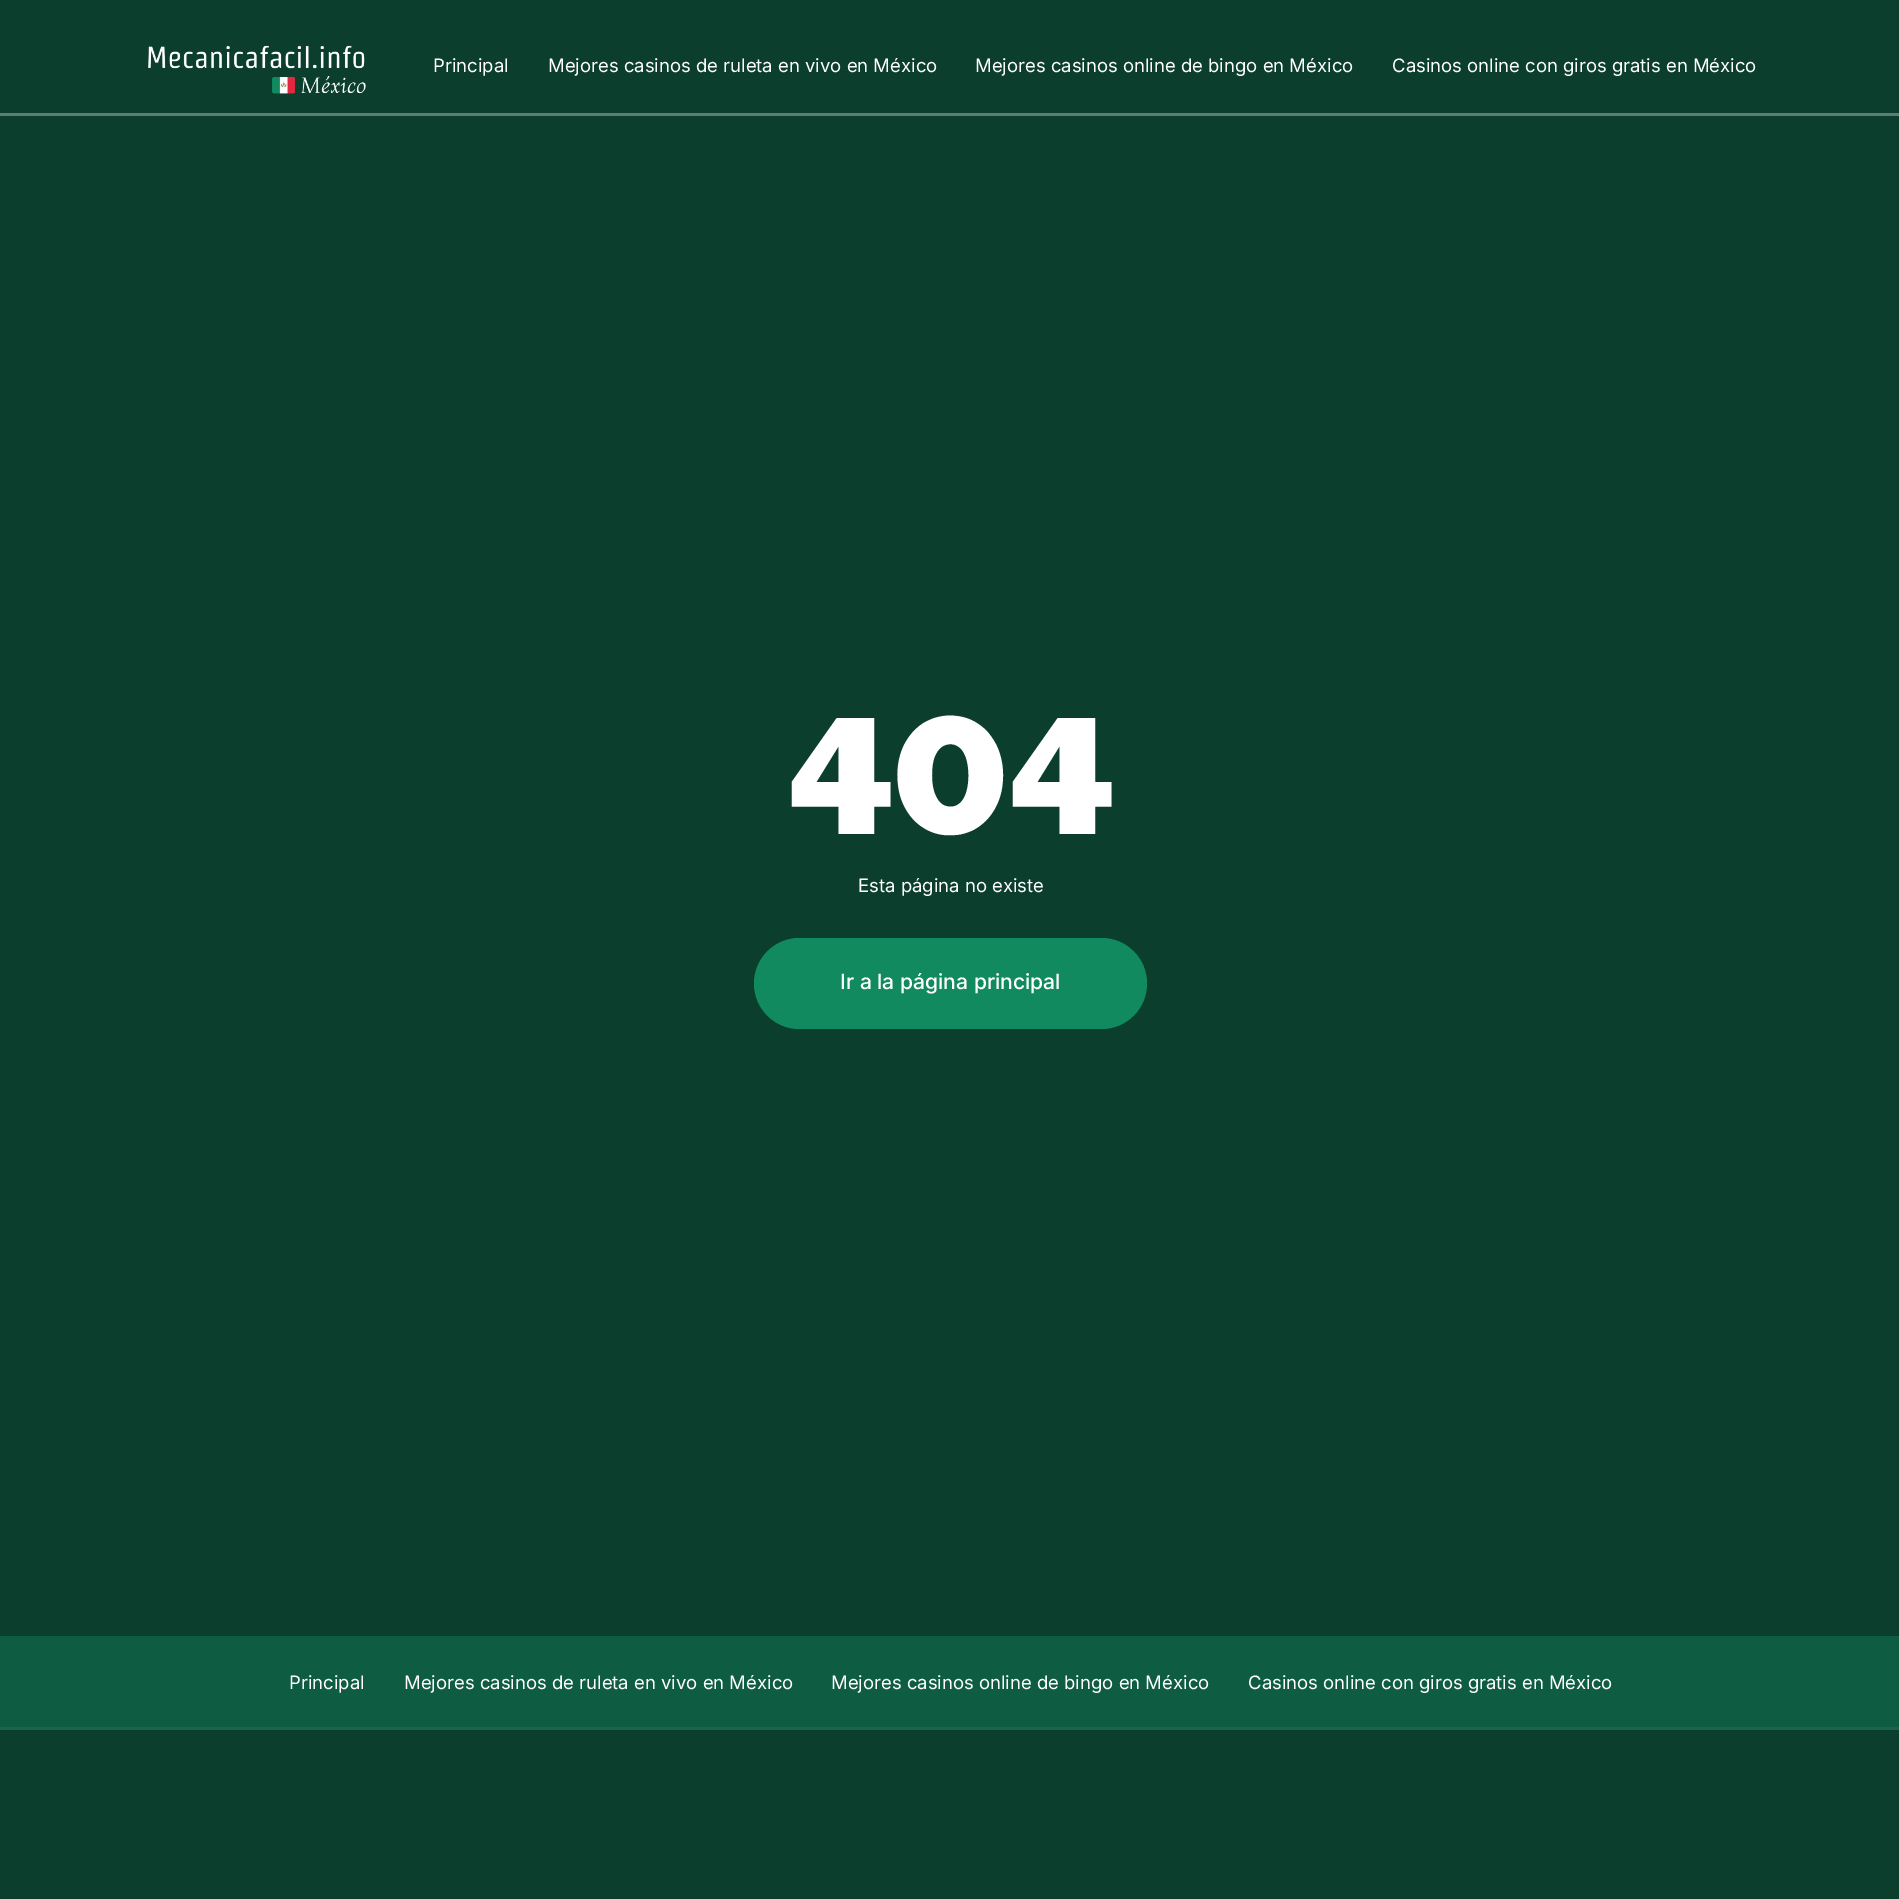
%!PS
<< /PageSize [1899 1899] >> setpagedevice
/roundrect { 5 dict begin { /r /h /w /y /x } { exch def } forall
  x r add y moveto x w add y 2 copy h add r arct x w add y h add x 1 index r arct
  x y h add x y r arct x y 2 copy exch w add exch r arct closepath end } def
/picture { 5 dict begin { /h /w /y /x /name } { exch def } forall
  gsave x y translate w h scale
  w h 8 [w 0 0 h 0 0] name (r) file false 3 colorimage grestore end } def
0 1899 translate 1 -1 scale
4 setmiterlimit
0.047 0.243 0.176 setrgbcolor
0 0 1899 1899 rectfill
0.361 0.494 0.447 setrgbcolor
0 113 1899 3 rectfill
(img1.rgb) 148 45 218 49 picture
/Inter-Regular [18.5 0 0 -18.5 0 0] selectfont
1 setgray
433 72 moveto (Principal) show
548 72 moveto (Mejores casinos de ruleta en vivo en México) show
975 72 moveto (Mejores casinos online de bingo en México) show
1392 72 moveto (Casinos online con giros gratis en México) show
/PaytoneOne-Regular [169 0 0 -169 0 0] selectfont
787 834 moveto (404) show
/Inter-Regular [18.5 0 0 -18.5 0 0] selectfont
858 892 moveto (Esta página no existe) show
0.071 0.541 0.376 setrgbcolor
754 938 393 91 45.5 roundrect fill
/Inter-Medium [21.1 0 0 -21.1 0 0] selectfont
1 setgray
840 989 moveto (Ir a la página principal) show
0.055 0.361 0.255 setrgbcolor
0 1636 1899 91 rectfill
0.102 0.392 0.294 setrgbcolor
0 1727 1899 3 rectfill
/Inter-Regular [18.5 0 0 -18.5 0 0] selectfont
1 setgray
289 1689 moveto (Principal) show
404 1689 moveto (Mejores casinos de ruleta en vivo en México) show
831 1689 moveto (Mejores casinos online de bingo en México) show
1248 1689 moveto (Casinos online con giros gratis en México) show
showpage
